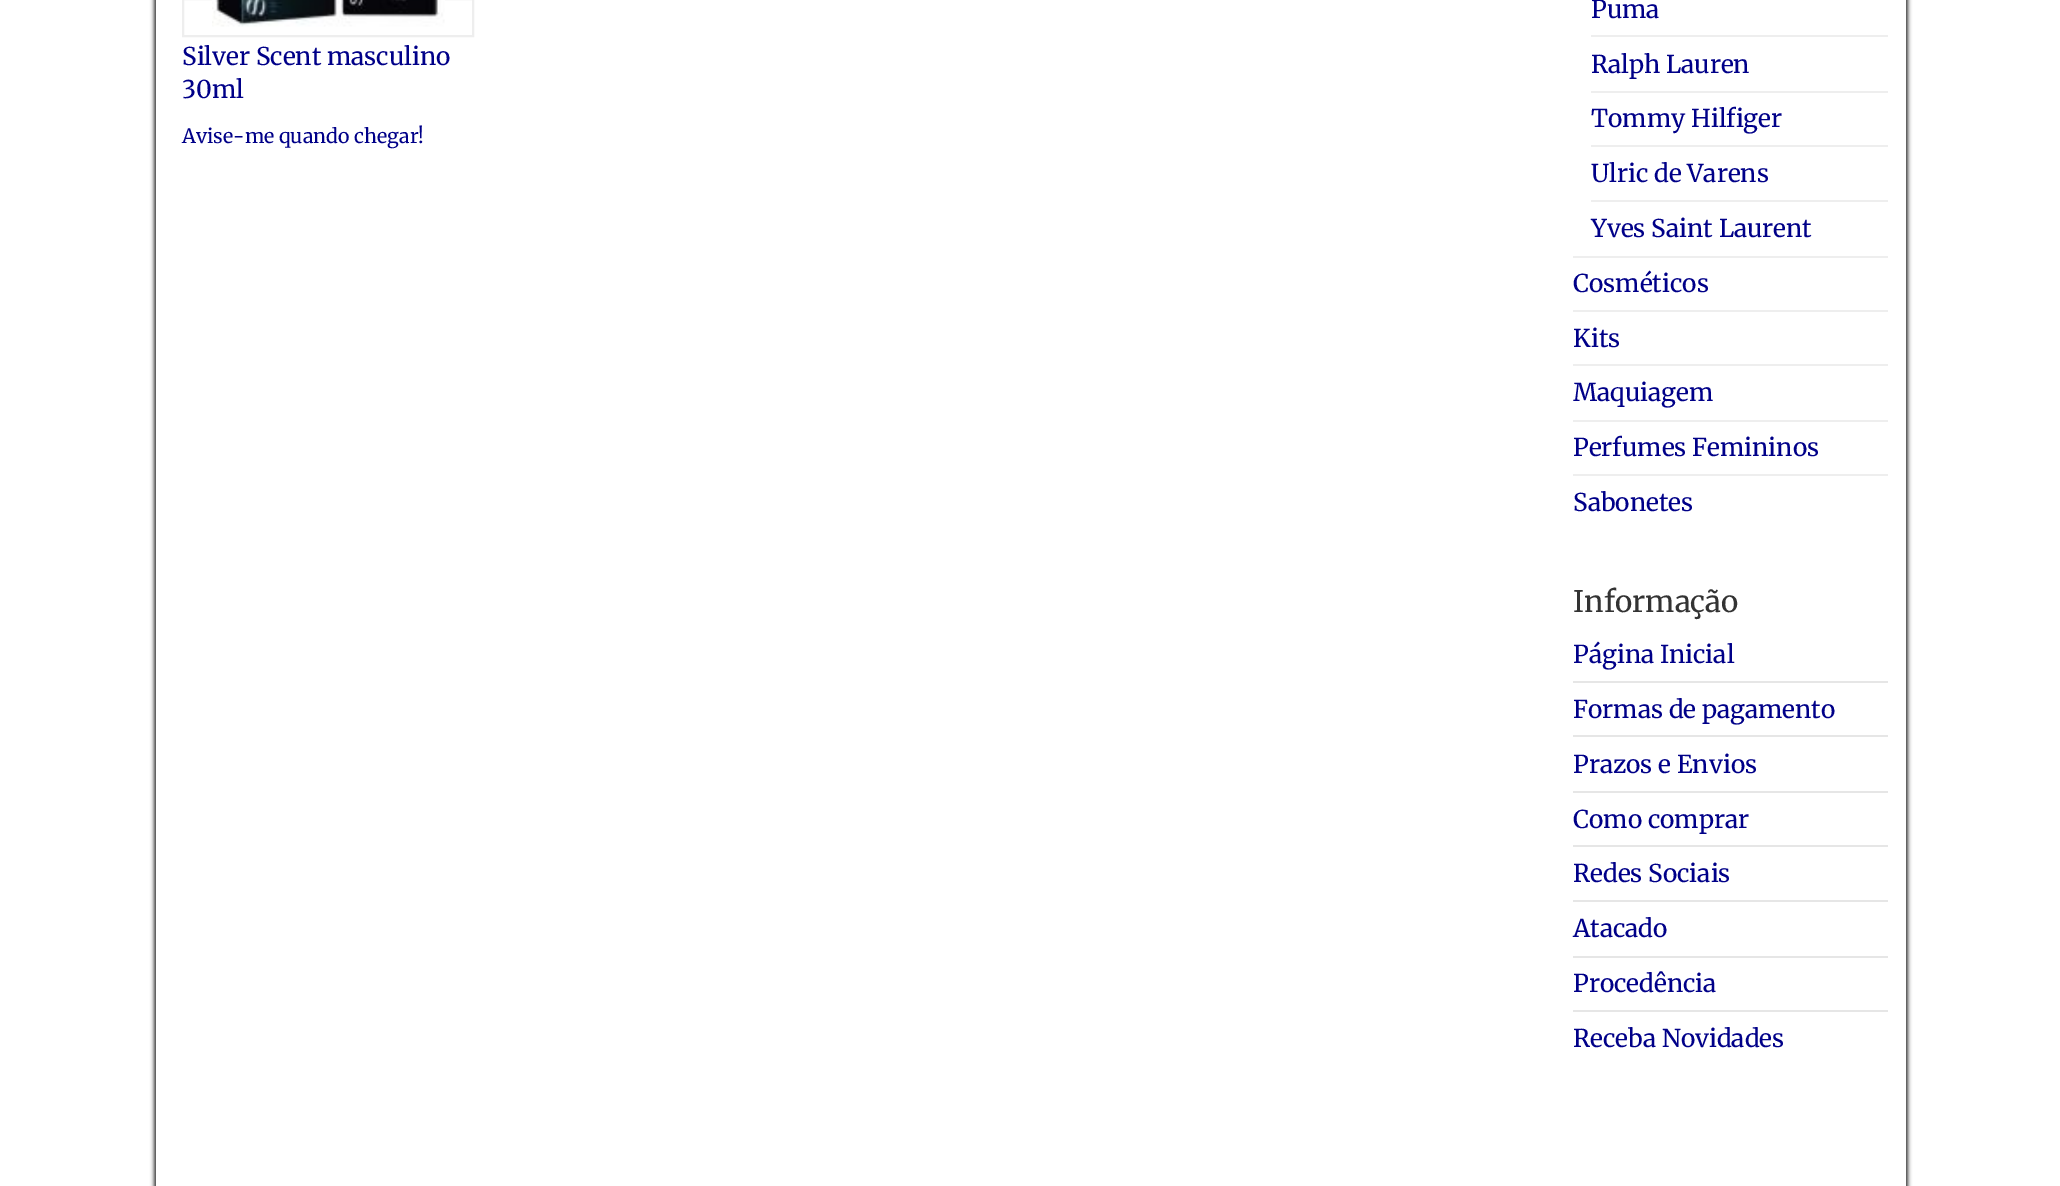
%!PS
<< /PageSize [2060 1186] /PageUsesTransparency true >> setpagedevice
/alpha { dup .setfillconstantalpha .setstrokeconstantalpha } def
/roundrect { 5 dict begin { /r /h /w /y /x } { exch def } forall
  x r add y moveto x w add y 2 copy h add r arct x w add y h add x 1 index r arct
  x y h add x y r arct x y 2 copy exch w add exch r arct closepath end } def
/shadow { 12 dict begin { /a /b /q /h /w /y /x } { exch def } forall gsave /was 0 def
  9 -2 -9 { dup b mul 4 div /e exch def 1 sub .425 mul 2.718 exch exp 1 add a .99 .min exch div /now exch def
    1 1 now sub 1 was sub div sub alpha /was now def
    w h .min e 2 mul add 0 gt { x e sub y e sub w e 2 mul add h e 2 mul add
      q e add b .6 mul add w h .min 2 div e add .min 0 .max roundrect fill } if } for grestore end } def
/picture { 5 dict begin { /h /w /y /x /name } { exch def } forall
  gsave x y translate w h scale
  w h 8 [w 0 0 h 0 0] name (r) file false 3 colorimage grestore end } def
0 .pushpdf14devicefilter
0 1186 translate 1 -1 scale
4 setmiterlimit
1 setgray
0 0 2060 1186 rectfill
0.2 setgray
154 -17 1754 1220 11 2 1 shadow
1 setgray
156 0 1750 1186 rectfill
0.933 setgray
2 setlinewidth
183 -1 290 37 rectstroke
(img1.rgb) 212 0 233 27 picture
/Merriweather-Regular [24.5 0 0 -24.5 0 0] selectfont
0 0 0.533 setrgbcolor
182 65 moveto (Silver Scent masculino) show
182 98 moveto (30ml) show
/Merriweather-Regular [19.6 0 0 -19.6 0 0] selectfont
182 143 moveto (Avise-me quando chegar!) show
/Merriweather-Regular [24.5 0 0 -24.5 0 0] selectfont
1591 18 moveto (Puma) show
0.933 setgray
1591 35 297 2 rectfill
0 0 0.533 setrgbcolor
1591 73 moveto (Ralph Lauren) show
0.933 setgray
1591 91 297 2 rectfill
0 0 0.533 setrgbcolor
1591 127 moveto (Tommy Hilfiger) show
0.933 setgray
1591 145 297 2 rectfill
0 0 0.533 setrgbcolor
1591 182 moveto (Ulric de Varens) show
0.933 setgray
1591 200 297 2 rectfill
0 0 0.533 setrgbcolor
1591 237 moveto (Yves Saint Laurent) show
0.933 setgray
1573 256 315 2 rectfill
0 0 0.533 setrgbcolor
1573 292 moveto (Cosméticos) show
0.933 setgray
1573 310 315 2 rectfill
0 0 0.533 setrgbcolor
1573 347 moveto (Kits) show
0.933 setgray
1573 364 315 2 rectfill
0 0 0.533 setrgbcolor
1573 401 moveto (Maquiagem) show
0.933 setgray
1573 420 315 2 rectfill
0 0 0.533 setrgbcolor
1573 456 moveto (Perfumes Femininos) show
0.933 setgray
1573 474 315 2 rectfill
0 0 0.533 setrgbcolor
1573 511 moveto (Sabonetes) show
/Merriweather-Regular [29.5 0 0 -29.5 0 0] selectfont
0.2 setgray
1573 612 moveto (Informação) show
/Merriweather-Regular [24.5 0 0 -24.5 0 0] selectfont
0 0 0.533 setrgbcolor
1573 663 moveto (Página Inicial) show
0.902 setgray
1573 681 315 2 rectfill
0 0 0.533 setrgbcolor
1573 718 moveto (Formas de pagamento) show
0.902 setgray
1573 735 315 2 rectfill
0 0 0.533 setrgbcolor
1573 773 moveto (Prazos e Envios) show
0.902 setgray
1573 791 315 2 rectfill
0 0 0.533 setrgbcolor
1573 828 moveto (Como comprar) show
0.902 setgray
1573 845 315 2 rectfill
0 0 0.533 setrgbcolor
1573 882 moveto (Redes Sociais) show
0.902 setgray
1573 900 315 2 rectfill
0 0 0.533 setrgbcolor
1573 937 moveto (Atacado) show
0.902 setgray
1573 956 315 2 rectfill
0 0 0.533 setrgbcolor
1573 992 moveto (Procedência) show
0.902 setgray
1573 1010 315 2 rectfill
0 0 0.533 setrgbcolor
1573 1047 moveto (Receba Novidades) show
.poppdf14devicefilter showpage
